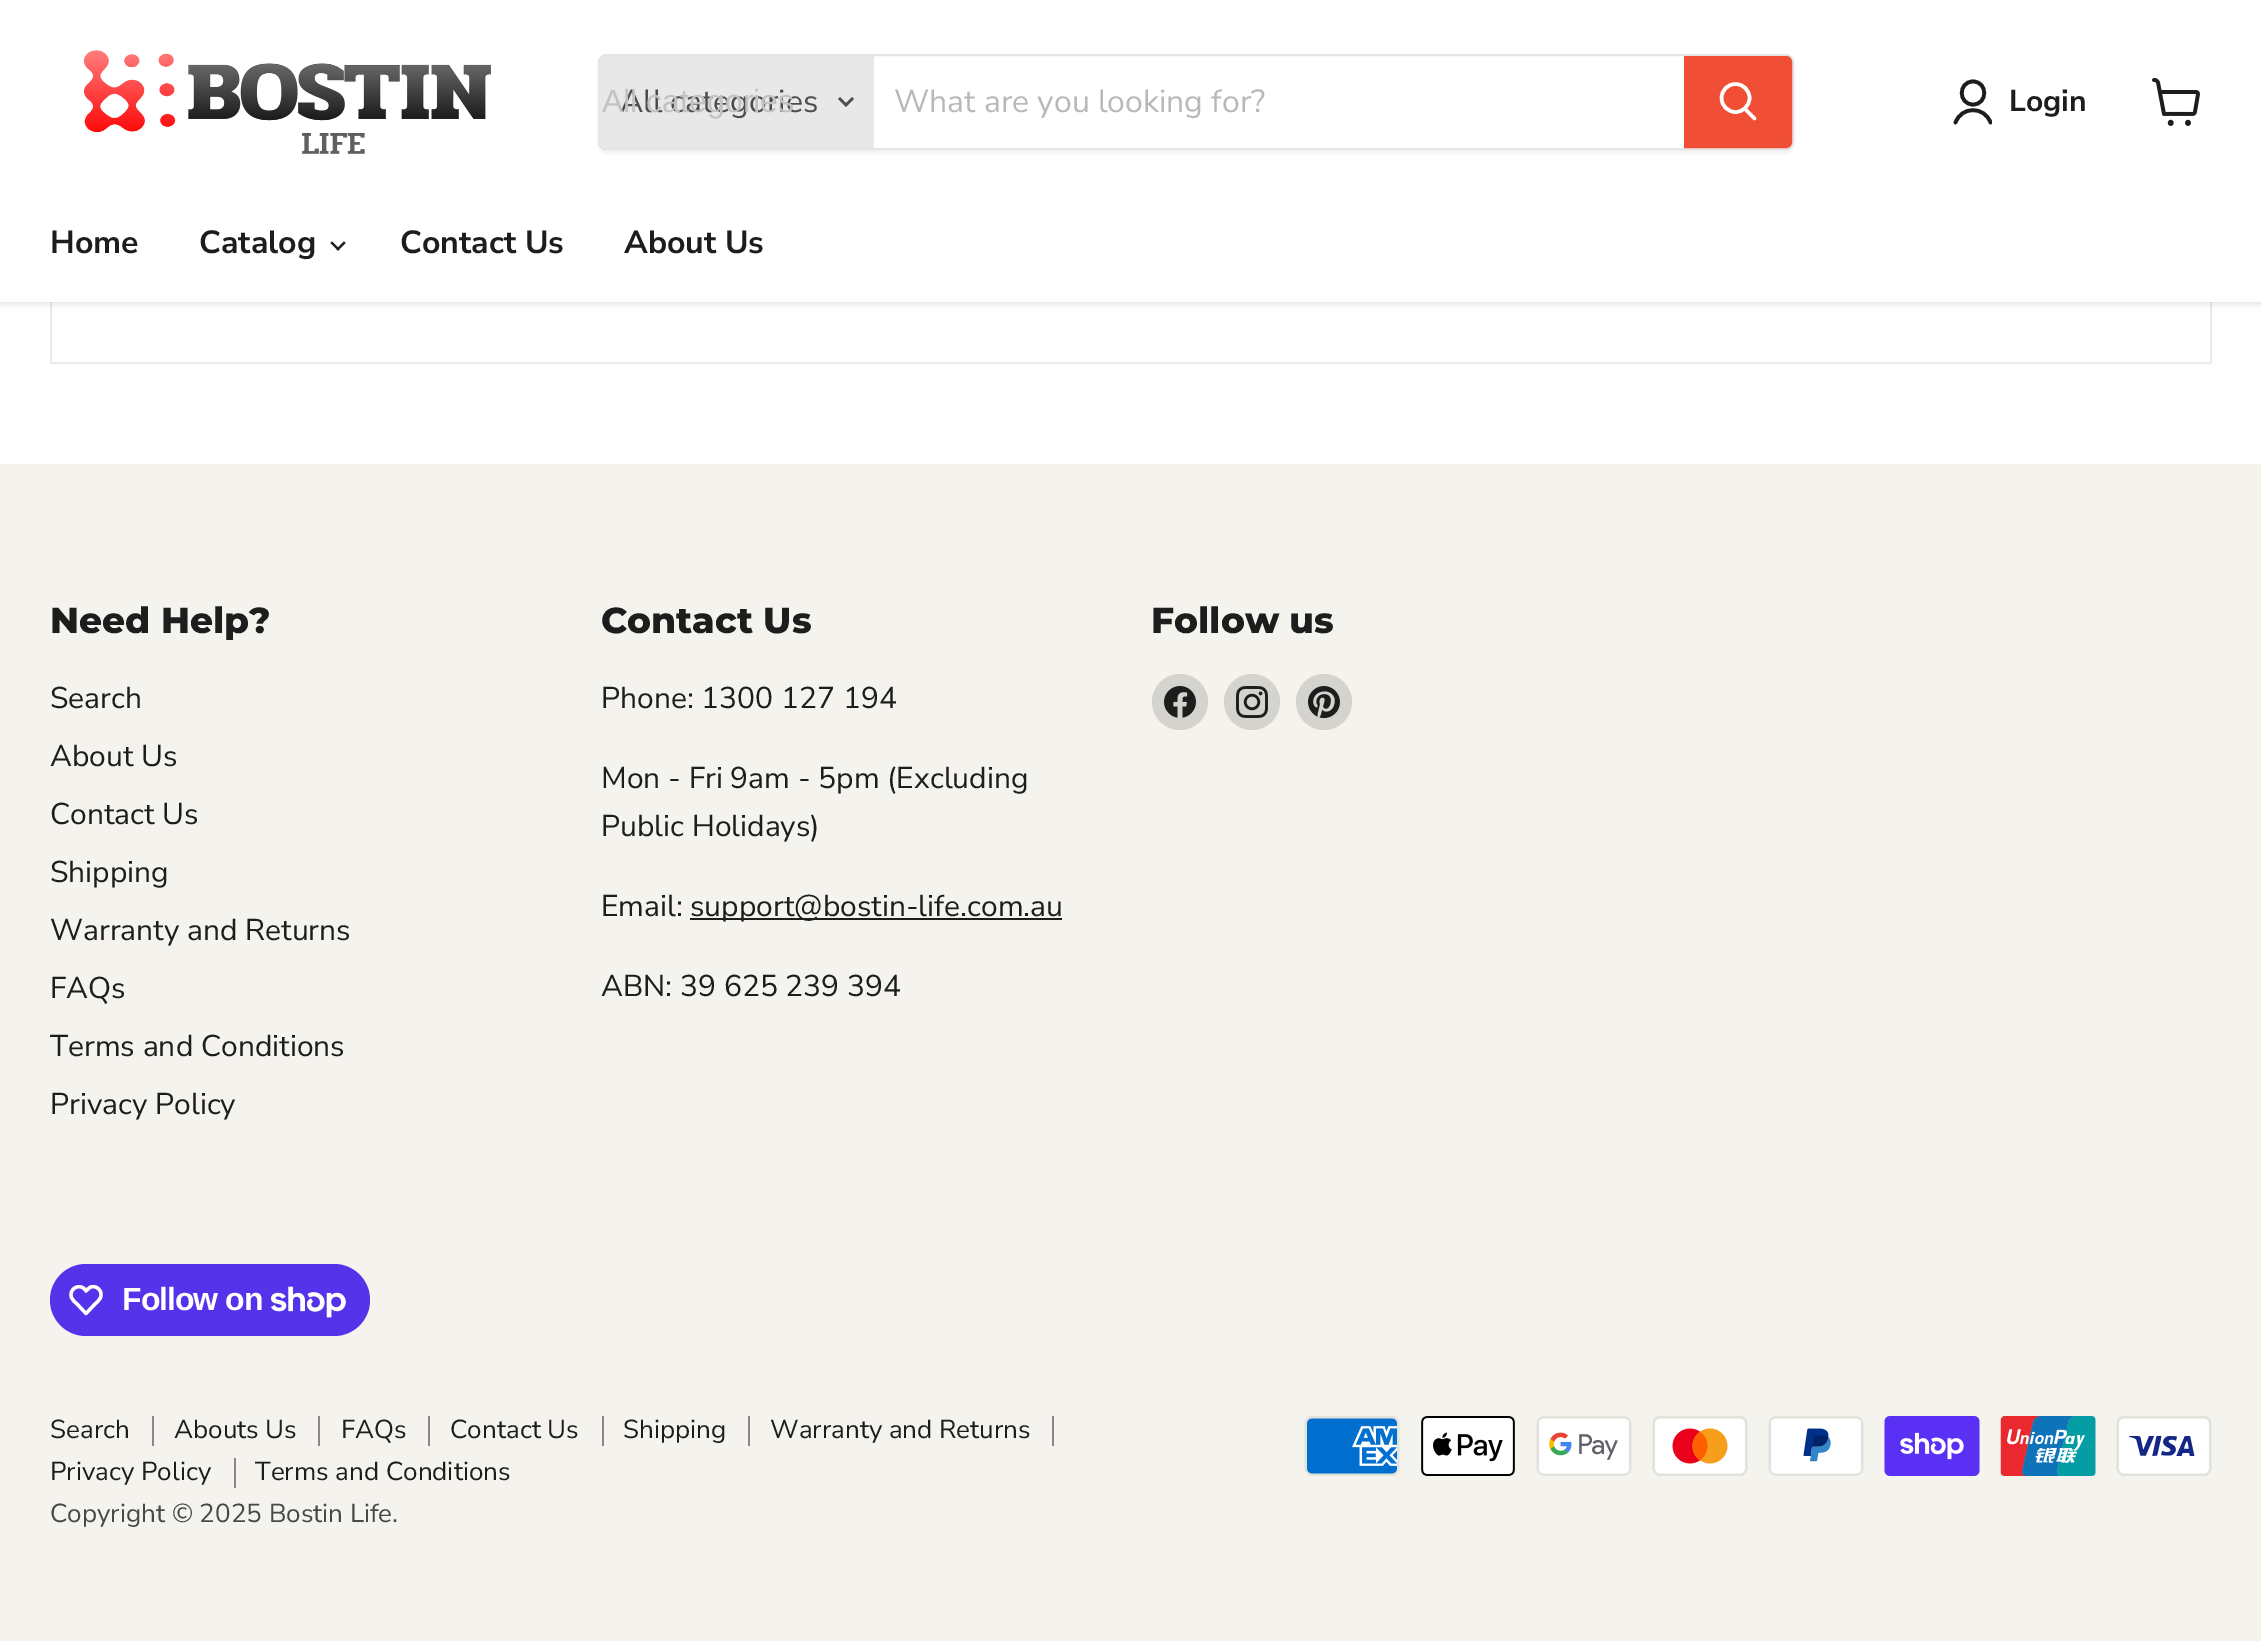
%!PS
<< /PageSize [2261 1641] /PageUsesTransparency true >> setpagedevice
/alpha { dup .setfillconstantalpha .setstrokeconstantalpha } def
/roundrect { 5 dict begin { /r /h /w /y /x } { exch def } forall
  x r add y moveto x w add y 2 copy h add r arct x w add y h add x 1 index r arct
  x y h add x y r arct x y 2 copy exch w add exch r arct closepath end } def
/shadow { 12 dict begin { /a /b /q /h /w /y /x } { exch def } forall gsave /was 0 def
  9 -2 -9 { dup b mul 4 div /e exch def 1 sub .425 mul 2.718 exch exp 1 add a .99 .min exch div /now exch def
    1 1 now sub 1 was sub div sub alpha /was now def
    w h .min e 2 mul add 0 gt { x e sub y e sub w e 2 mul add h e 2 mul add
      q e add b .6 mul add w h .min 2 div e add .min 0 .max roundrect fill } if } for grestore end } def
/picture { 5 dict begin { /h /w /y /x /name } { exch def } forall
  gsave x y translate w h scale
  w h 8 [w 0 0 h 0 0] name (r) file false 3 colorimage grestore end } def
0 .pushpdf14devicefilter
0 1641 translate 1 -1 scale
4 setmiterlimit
1 setgray
0 0 2261 1641 rectfill
0.922 setgray
2 setlinewidth
51 -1 2160 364 rectstroke
0.502 setgray
0 2 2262 302 0 4 0.25 shadow
1 setgray
0 0 2261 302 rectfill
(img1.rgb) 83 50 408 104 picture
gsave
newpath 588 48 moveto 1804 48 lineto 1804 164 lineto 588 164 lineto closepath 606 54 moveto 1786 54 lineto 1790.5 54 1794 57.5 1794 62 curveto 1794 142 lineto 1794 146.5 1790.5 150 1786 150 curveto 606 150 lineto 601.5 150 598 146.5 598 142 curveto 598 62 lineto 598 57.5 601.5 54 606 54 curveto closepath eoclip newpath
0.502 setgray
598 58 1196 96 8 3 0.11 shadow
grestore
0.2 alpha
0.502 setgray
599 55 1194 94 7 roundrect stroke
1 alpha
0.91 setgray
newpath 606 56 moveto 874 56 lineto 874 148 lineto 606 148 lineto 602.5 148 600 145.5 600 142 curveto 600 62 lineto 600 58.5 602.5 56 606 56 curveto closepath fill
/NunitoSans-Regular [32 0 0 -32 0 0] selectfont
0.302 setgray
620 112 moveto (All categories) show
/LiberationSans-Regular [32 0 0 -32 0 0] selectfont
0.761 setgray
602 112 moveto (All categories) show
0.302 setgray
2.5 setlinewidth
2 setlinecap
newpath 846 105 moveto 852 99 lineto 846 105 moveto 840 99 lineto stroke
/NunitoSans-Regular [32 0 0 -32 0 0] selectfont
0.722 setgray
894 112 moveto (What are you looking for?) show
0.941 0.31 0.212 setrgbcolor
newpath 1685 57 moveto 1786 57 lineto 1789 57 1791 59 1791 62 curveto 1791 142 lineto 1791 145 1789 147 1786 147 curveto 1685 147 lineto closepath gsave fill grestore
2 setlinewidth
0 setlinecap
stroke
1 setgray
3.5 setlinewidth
1 setlinecap
newpath 1754.5 118.5 moveto 1745 109 lineto stroke
0 setlinecap
newpath 1735.5 98 14 0 360 arc closepath stroke
0.114 setgray
3.7 setlinewidth
1 setlinecap
1 setlinejoin
newpath 1973 104.5 moveto 1988 104.5 1988 81.5 1973 81.5 curveto 1958 81.5 1958 104.5 1973 104.5 curveto closepath stroke
gsave
1952 78 40 48 rectclip
newpath 1990.5 122.5 moveto 1984.5 106 1961.5 106 1955.5 122.5 curveto stroke
grestore
/NunitoSans-Bold [30 0 0 -30 0 0] selectfont
2009 111 moveto (Login) show
(img2.rgb) 2152 78 48 48 picture
/NunitoSans-Bold [32 0 0 -32 0 0] selectfont
50 253 moveto (Home) show
199 253 moveto (Catalog) show
(img3.rgb) 330 241 16 10 picture
400 253 moveto (Contact Us) show
624 253 moveto (About Us) show
0.961 0.953 0.929 setrgbcolor
0 464 2261 1177 rectfill
/Montserrat-ExtraBold [36 0 0 -36 0 0] selectfont
0.114 setgray
50 633 moveto (Need Help?) show
/NunitoSans-Regular [30 0 0 -30 0 0] selectfont
50 708 moveto (Search) show
50 766 moveto (About Us) show
50 824 moveto (Contact Us) show
50 882 moveto (Shipping) show
50 940 moveto (Warranty and Returns) show
50 998 moveto (FAQs) show
50 1056 moveto (Terms and Conditions) show
50 1114 moveto (Privacy Policy) show
/Montserrat-ExtraBold [36 0 0 -36 0 0] selectfont
601 633 moveto (Contact Us) show
/NunitoSans-Regular [30 0 0 -30 0 0] selectfont
601 708 moveto (Phone: 1300 127 194) show
601 788 moveto (Mon - Fri 9am - 5pm \(Excluding) show
601 836 moveto (Public Holidays\)) show
601 916 moveto (Email:) show
690 918 372 2 rectfill
690 916 moveto (support@bostin-life.com.au) show
601 996 moveto (ABN: 39 625 239 394) show
/Montserrat-ExtraBold [36 0 0 -36 0 0] selectfont
1151 633 moveto (Follow us) show
0.835 0.827 0.808 setrgbcolor
newpath 1180 702 28 0 360 arc closepath fill
(img4.rgb) 1164 686 32 32 picture
newpath 1252 702 28 0 360 arc closepath fill
(img5.rgb) 1236 686 32 32 picture
newpath 1324 702 28 0 360 arc closepath fill
(img6.rgb) 1308 686 32 33 picture
0.329 0.2 0.922 setrgbcolor
50 1264 320 72 36 roundrect fill
1 setgray
3.3 setlinewidth
0 setlinecap
newpath 84.5 1289 moveto 86 1291 lineto 87.5 1289.5 89 1287.5 91 1287 curveto 97 1285 103 1291.5 100.5 1297.5 curveto 99.5 1300.5 96.5 1302.5 94.5 1304.5 curveto 86 1313.5 lineto 77.5 1304.5 lineto 75.5 1302.5 72.5 1300.5 71.5 1297.5 curveto 68.5 1289.5 78.5 1283 84.5 1289 curveto closepath stroke
/LiberationSans-Bold [32 0 0 -32 0 0] selectfont
122 1310 moveto -1 0 (Follow on) ashow
(img7.rgb) 271 1286 75 32 picture
0.537 0.533 0.522 setrgbcolor
152 1416 2 30 rectfill
/NunitoSans-Regular [26 0 0 -26 0 0] selectfont
0.114 setgray
50 1438 moveto (Search) show
0.537 0.533 0.522 setrgbcolor
318 1416 2 30 rectfill
0.114 setgray
174 1438 moveto (Abouts Us) show
0.537 0.533 0.522 setrgbcolor
428 1416 2 30 rectfill
0.114 setgray
341 1438 moveto (FAQs) show
0.537 0.533 0.522 setrgbcolor
602 1416 2 30 rectfill
0.114 setgray
450 1438 moveto (Contact Us) show
0.537 0.533 0.522 setrgbcolor
748 1416 2 30 rectfill
0.114 setgray
623 1438 moveto (Shipping) show
0.537 0.533 0.522 setrgbcolor
1052 1416 2 30 rectfill
0.114 setgray
770 1438 moveto (Warranty and Returns) show
0.537 0.533 0.522 setrgbcolor
234 1458 2 30 rectfill
0.114 setgray
50 1480 moveto (Privacy Policy) show
255 1480 moveto (Terms and Conditions) show
0.282 0.282 0.278 setrgbcolor
50 1522 moveto (Copyright © 2025 Bostin Life.) show
(img8.rgb) 1304 1416 96 60 picture
(img9.rgb) 1421 1416 94 60 picture
(img10.rgb) 1536 1416 96 60 picture
(img11.rgb) 1652 1416 96 60 picture
(img12.rgb) 1768 1416 96 60 picture
(img13.rgb) 1884 1416 96 60 picture
(img14.rgb) 2000 1416 96 60 picture
(img15.rgb) 2116 1416 96 60 picture
.poppdf14devicefilter showpage
